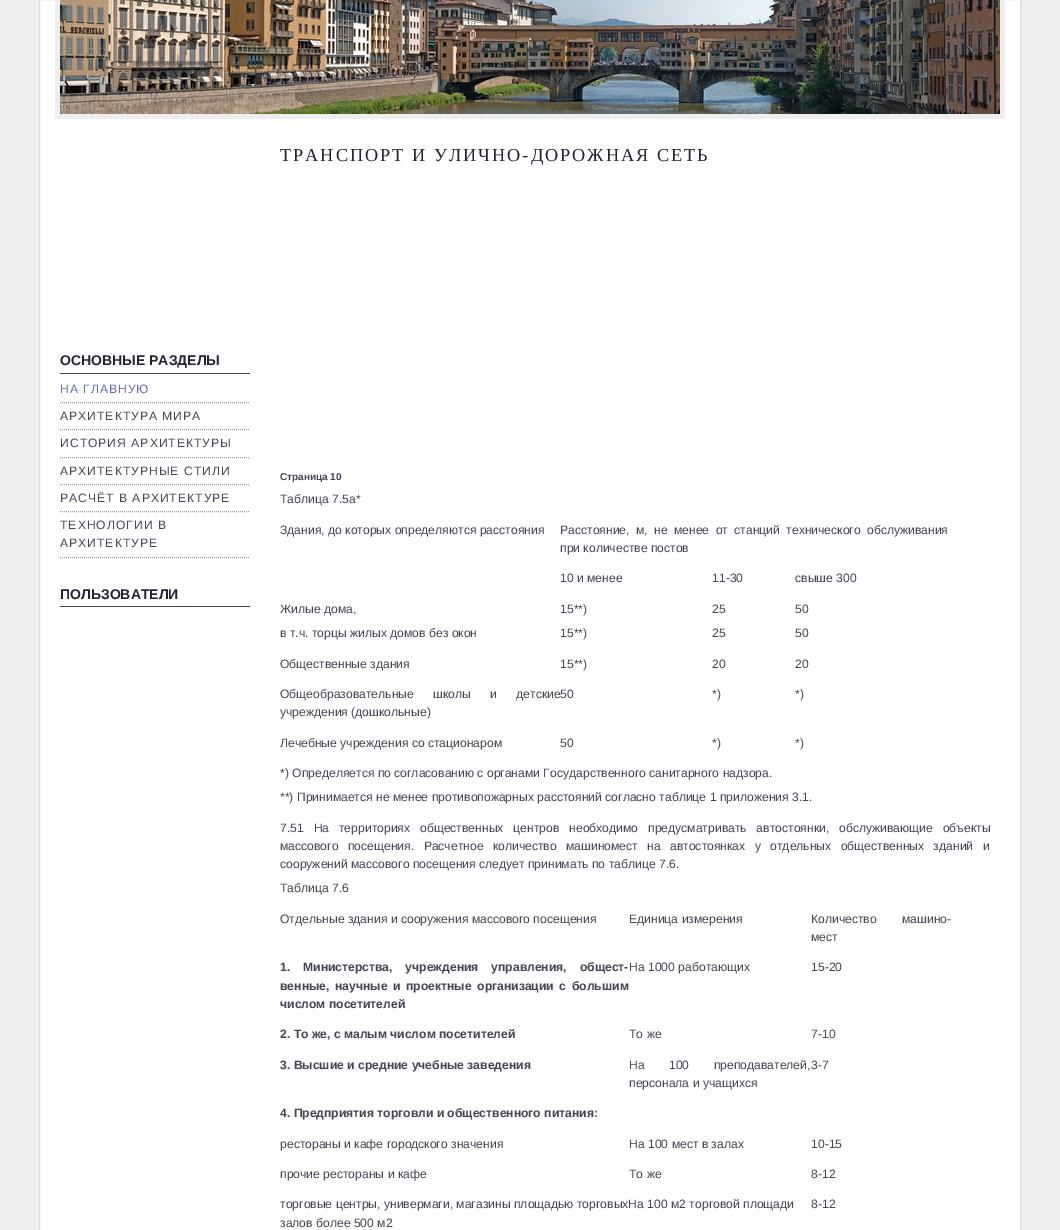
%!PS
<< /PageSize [1060 1230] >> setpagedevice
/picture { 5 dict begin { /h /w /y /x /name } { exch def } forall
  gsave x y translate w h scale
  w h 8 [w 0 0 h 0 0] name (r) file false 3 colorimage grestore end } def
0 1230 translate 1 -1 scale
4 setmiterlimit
0.933 setgray
0 0 1060 1230 rectfill
1 setgray
newpath 39.5 -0.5 moveto 1020.5 -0.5 lineto 1020.5 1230.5 lineto 39.5 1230.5 lineto closepath gsave fill grestore
0.867 setgray
stroke
0.933 setgray
1000 0 5 119 rectfill
55 114 950 5 rectfill
55 0 5 119 rectfill
(img1.rgb) 60 0 940 114 picture
0.267 0.267 0.333 setrgbcolor
60 373 190 1 rectfill
/LiberationSans-Bold [14 0 0 -14 0 0] selectfont
0.133 0.133 0.2 setrgbcolor
60 365 moveto (ОСНОВНЫЕ РАЗДЕЛЫ) show
0.6 0.6 0.667 setrgbcolor
[1 1] 0 setdash
newpath 60 402.5 moveto 250 402.5 lineto stroke
/LiberationSans-Regular [12.15 0 0 -12.15 0 0] selectfont
0.4 0.4 0.8 setrgbcolor
60 393 moveto 1 0 (НА ГЛАВНУЮ) ashow
0.6 0.6 0.667 setrgbcolor
newpath 60 429.5 moveto 250 429.5 lineto stroke
0.267 0.267 0.333 setrgbcolor
60 420 moveto 1 0 (AРХИТЕКТУРА МИРА) ashow
0.6 0.6 0.667 setrgbcolor
newpath 60 457.5 moveto 250 457.5 lineto stroke
0.267 0.267 0.333 setrgbcolor
60 447 moveto 1 0 (ИСТОРИЯ АРХИТЕКТУРЫ) ashow
0.6 0.6 0.667 setrgbcolor
newpath 60 484.5 moveto 250 484.5 lineto stroke
0.267 0.267 0.333 setrgbcolor
60 475 moveto 1 0 (AРХИТЕКТУРНЫЕ СТИЛИ) ashow
0.6 0.6 0.667 setrgbcolor
newpath 60 511.5 moveto 250 511.5 lineto stroke
0.267 0.267 0.333 setrgbcolor
60 502 moveto 1 0 (РАСЧЁТ В АРХИТЕКТУРЕ) ashow
0.6 0.6 0.667 setrgbcolor
newpath 60 557.5 moveto 250 557.5 lineto stroke
0.267 0.267 0.333 setrgbcolor
60 529 moveto 1 0 (ТЕХНОЛОГИИ В) ashow
60 547 moveto 1 0 (АРХИТЕКТУРЕ) ashow
60 606 190 1 rectfill
/LiberationSans-Bold [14 0 0 -14 0 0] selectfont
0.133 0.133 0.2 setrgbcolor
60 599 moveto (ПОЛЬЗОВАТЕЛИ) show
/LiberationSerif-Regular [18.25 0 0 -18.25 0 0] selectfont
280 161 moveto 2 0 (ТРАНСПОРТ И УЛИЧНО-ДОРОЖНАЯ СЕТЬ) ashow
/LiberationSans-Bold [10 0 0 -10 0 0] selectfont
0.267 0.267 0.333 setrgbcolor
280 480 moveto (Страница 10) show
/LiberationSans-Regular [12.15 0 0 -12.15 0 0] selectfont
280 503 moveto (Таблица 7.5а*) show
280 534 moveto (Здания, до которых определяются расстояния) show
560 534 moveto 3 0 32 (Расстояние, м, не менее от станций технического обслуживания) widthshow
560 552 moveto (при количестве постов) show
560 582 moveto (10 и менее) show
712 582 moveto (11-30) show
795 582 moveto (свыше 300) show
280 613 moveto (Жилые дома,) show
280 637 moveto (в т.ч. торцы жилых домов без окон) show
560 613 moveto (15**\)) show
560 637 moveto (15**\)) show
712 613 moveto (25) show
712 637 moveto (25) show
795 613 moveto (50) show
795 637 moveto (50) show
280 668 moveto (Общественные здания) show
560 668 moveto (15**\)) show
712 668 moveto (20) show
795 668 moveto (20) show
280 698 moveto 16 0 32 (Общеобразовательные школы и детские) widthshow
280 716 moveto (учреждения \(дошкольные\)) show
560 698 moveto (50) show
712 698 moveto (*\)) show
795 698 moveto (*\)) show
280 747 moveto (Лечебные учреждения со стационаром) show
560 747 moveto (50) show
712 747 moveto (*\)) show
795 747 moveto (*\)) show
280 777 moveto (*\) Определяется по согласованию с органами Государственного санитарного надзора.) show
280 801 moveto (**\) Принимается не менее противопожарных расстояний согласно таблице 1 приложения 3.1.) show
280 832 moveto 6.5 0 32 (7.51 На территориях общественных центров необходимо предусматривать автостоянки, обслуживающие объекты) widthshow
280 850 moveto 6 0 32 (массового посещения. Расчетное количество машиномест на автостоянках у отдельных общественных зданий и) widthshow
280 868 moveto (сооружений массового посещения следует принимать по таблице 7.6.) show
280 892 moveto (Таблица 7.6) show
280 923 moveto (Отдельные здания и сооружения массового посещения) show
629 923 moveto (Единица измерения) show
811 923 moveto 22 0 32 (Количество машино-) widthshow
811 941 moveto (мест) show
/LiberationSans-Bold [12.15 0 0 -12.15 0 0] selectfont
280 971 moveto 9.5 0 32 (1. Министерства, учреждения управления, общест-) widthshow
280 990 moveto 2.25 0 32 (венные, научные и проектные организации с большим) widthshow
280 1008 moveto (числом посетителей) show
/LiberationSans-Regular [12.15 0 0 -12.15 0 0] selectfont
629 971 moveto (На 1000 работающих) show
811 971 moveto (15-20) show
/LiberationSans-Bold [12.15 0 0 -12.15 0 0] selectfont
280 1038 moveto (2. То же, с малым числом посетителей) show
/LiberationSans-Regular [12.15 0 0 -12.15 0 0] selectfont
629 1038 moveto (То же) show
811 1038 moveto (7-10) show
/LiberationSans-Bold [12.15 0 0 -12.15 0 0] selectfont
280 1069 moveto (3. Высшие и средние учебные заведения) show
/LiberationSans-Regular [12.15 0 0 -12.15 0 0] selectfont
629 1069 moveto 21 0 32 (На 100 преподавателей,) widthshow
629 1087 moveto (персонала и учащихся) show
811 1069 moveto (3-7) show
/LiberationSans-Bold [12.15 0 0 -12.15 0 0] selectfont
280 1117 moveto (4. Предприятия торговли и общественного питания:) show
/LiberationSans-Regular [12.15 0 0 -12.15 0 0] selectfont
280 1148 moveto (рестораны и кафе городского значения) show
629 1148 moveto (На 100 мест в залах) show
811 1148 moveto (10-15) show
280 1178 moveto (прочие рестораны и кафе) show
629 1178 moveto (То же) show
811 1178 moveto (8-12) show
280 1208 moveto (торговые центры, универмаги, магазины площадью торговыхНа 100 м2 торговой площади) show
280 1227 moveto (залов более 500 м2) show
811 1208 moveto (8-12) show
showpage
